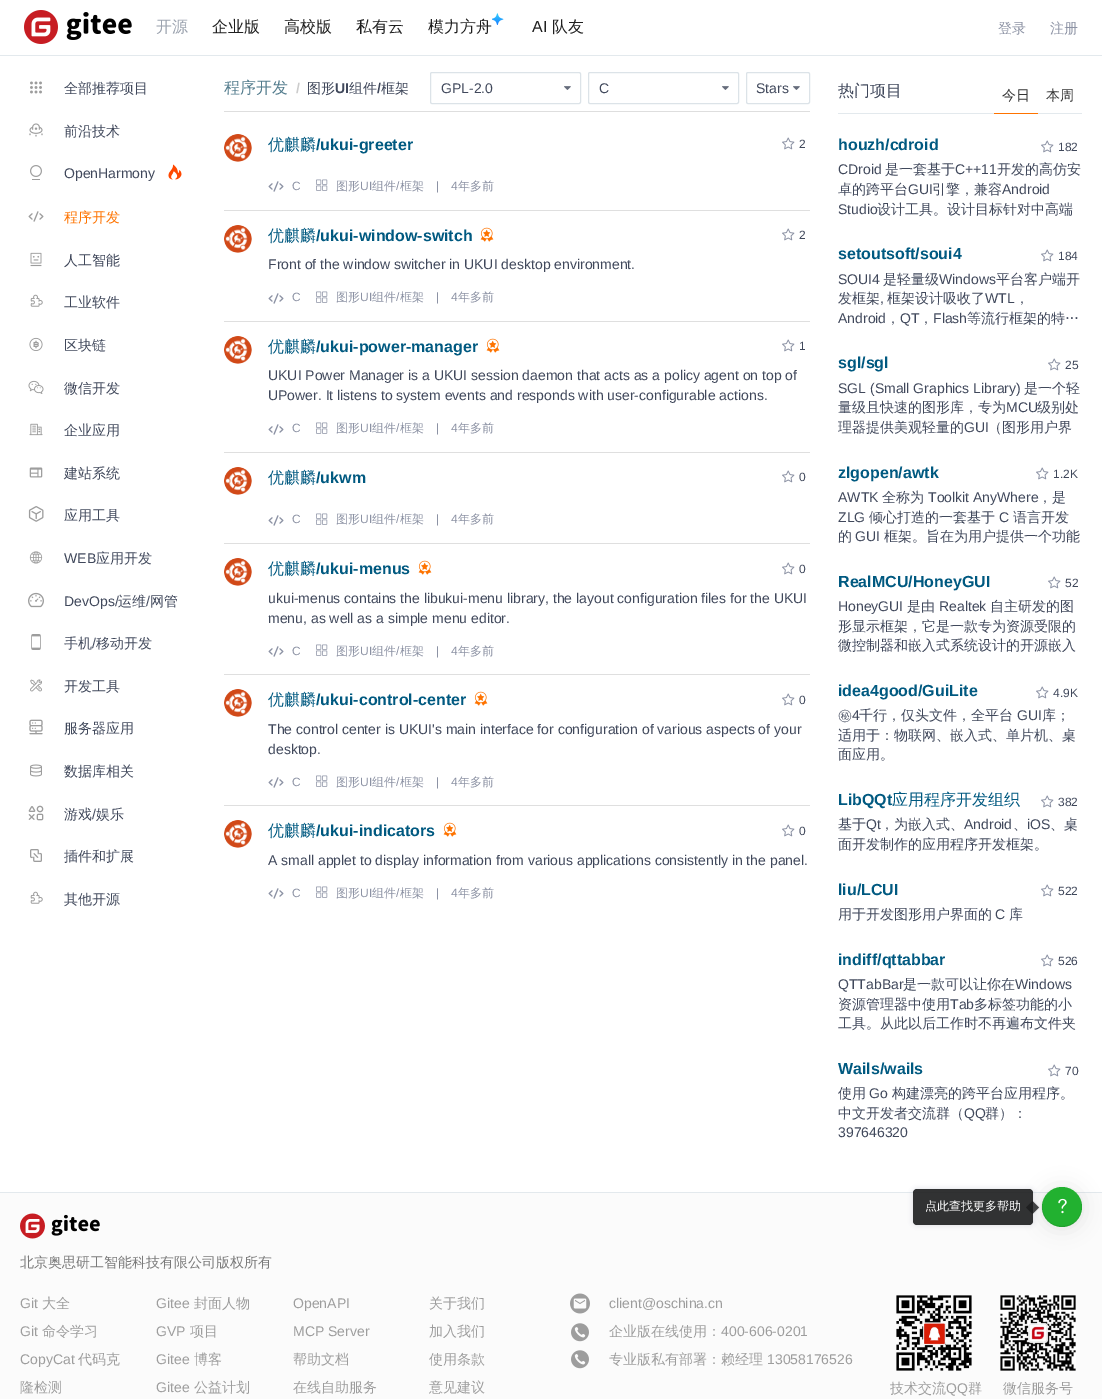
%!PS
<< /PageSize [1102 1399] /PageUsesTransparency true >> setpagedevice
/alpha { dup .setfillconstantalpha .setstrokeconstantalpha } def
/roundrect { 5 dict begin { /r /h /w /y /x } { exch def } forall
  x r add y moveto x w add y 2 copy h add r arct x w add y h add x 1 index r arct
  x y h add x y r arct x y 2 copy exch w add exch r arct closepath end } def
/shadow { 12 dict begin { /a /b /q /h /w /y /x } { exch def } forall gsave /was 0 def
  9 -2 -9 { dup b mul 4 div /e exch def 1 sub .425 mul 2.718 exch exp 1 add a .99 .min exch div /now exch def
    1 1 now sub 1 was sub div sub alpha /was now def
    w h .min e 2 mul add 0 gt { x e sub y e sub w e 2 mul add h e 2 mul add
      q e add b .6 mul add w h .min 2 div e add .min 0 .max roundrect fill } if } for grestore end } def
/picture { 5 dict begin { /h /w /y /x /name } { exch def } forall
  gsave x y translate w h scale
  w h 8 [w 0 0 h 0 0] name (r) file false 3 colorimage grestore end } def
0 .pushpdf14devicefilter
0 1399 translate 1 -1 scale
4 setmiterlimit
1 setgray
0 0 1102 1399 rectfill
0.89 0.914 0.929 setrgbcolor
0 55 1102 1 rectfill
(img1.rgb) 24 10 108 34 picture
/WenQuanYiZenHei-Medium [16 0 0 -16 0 0] selectfont
0.612 0.639 0.686 setrgbcolor
156 32 moveto (开源) show
0.122 setgray
212 32 moveto (企业版) show
284 32 moveto (高校版) show
356 32 moveto (私有云) show
428 32 moveto (模力方舟) show
(img2.rgb) 492 13 12 12 picture
/LiberationSans-Regular [16 0 0 -16 0 0] selectfont
532 32 moveto (AI) show
/WenQuanYiZenHei-Medium [16 0 0 -16 0 0] selectfont
552 32 moveto (队友) show
/WenQuanYiZenHei-Medium [14 0 0 -14 0 0] selectfont
0.549 0.573 0.643 setrgbcolor
998 33 moveto (登录) show
1050 33 moveto (注册) show
(img3.rgb) 30 81 12 13 picture
0.251 0.282 0.357 setrgbcolor
64 93 moveto (全部推荐项目) show
(img4.rgb) 29 123 14 14 picture
64 136 moveto (前沿技术) show
(img5.rgb) 30 165 12 15 picture
/LiberationSans-Regular [14 0 0 -14 0 0] selectfont
64 178 moveto (OpenHarmony) show
(img6.rgb) 168 164 14 16 picture
(img7.rgb) 28 211 16 11 picture
/WenQuanYiZenHei-Medium [14 0 0 -14 0 0] selectfont
0.996 0.451 0 setrgbcolor
64 222 moveto (程序开发) show
(img8.rgb) 30 252 12 15 picture
0.251 0.282 0.357 setrgbcolor
64 265 moveto (人工智能) show
(img9.rgb) 30 294 13 13 picture
64 307 moveto (工业软件) show
(img10.rgb) 29 337 14 14 picture
64 350 moveto (区块链) show
(img11.rgb) 28 380 16 14 picture
64 393 moveto (微信开发) show
(img12.rgb) 29 423 14 13 picture
64 435 moveto (企业应用) show
(img13.rgb) 29 467 14 11 picture
64 478 moveto (建站系统) show
(img14.rgb) 28 506 16 16 picture
64 520 moveto (应用工具) show
(img15.rgb) 29 551 14 13 picture
/LiberationSans-Regular [14 0 0 -14 0 0] selectfont
64 563 moveto (WEB) show
/WenQuanYiZenHei-Medium [14 0 0 -14 0 0] selectfont
96 563 moveto (应用开发) show
(img16.rgb) 28 592 16 16 picture
/LiberationSans-Regular [14 0 0 -14 0 0] selectfont
64 606 moveto (DevOps/) show
/WenQuanYiZenHei-Medium [14 0 0 -14 0 0] selectfont
118 606 moveto (运维) show
/LiberationSans-Regular [14 0 0 -14 0 0] selectfont
146 606 moveto (/) show
/WenQuanYiZenHei-Medium [14 0 0 -14 0 0] selectfont
150 606 moveto (网管) show
(img17.rgb) 31 634 10 16 picture
64 648 moveto (手机) show
/LiberationSans-Regular [14 0 0 -14 0 0] selectfont
92 648 moveto (/) show
/WenQuanYiZenHei-Medium [14 0 0 -14 0 0] selectfont
96 648 moveto (移动开发) show
(img18.rgb) 30 679 12 13 picture
64 691 moveto (开发工具) show
(img19.rgb) 29 719 14 16 picture
64 733 moveto (服务器应用) show
(img20.rgb) 30 764 12 13 picture
64 776 moveto (数据库相关) show
(img21.rgb) 28 805 16 16 picture
64 819 moveto (游戏) show
/LiberationSans-Regular [14 0 0 -14 0 0] selectfont
92 819 moveto (/) show
/WenQuanYiZenHei-Medium [14 0 0 -14 0 0] selectfont
96 819 moveto (娱乐) show
(img22.rgb) 30 849 12 13 picture
64 861 moveto (插件和扩展) show
(img9.rgb) 30 891 13 13 picture
64 904 moveto (其他开源) show
/WenQuanYiZenHei-Medium [16 0 0 -16 0 0] selectfont
0.325 0.486 0.553 setrgbcolor
224 93 moveto (程序开发) show
/LiberationSans-Bold [14 0 0 -14 0 0] selectfont
0.8 setgray
296 93 moveto (/) show
/WenQuanYiZenHei-Medium [14 0 0 -14 0 0] selectfont
0.251 0.282 0.357 setrgbcolor
307 93 moveto (图形) show
/LiberationSans-Bold [14 0 0 -14 0 0] selectfont
335 93 moveto (UI) show
/WenQuanYiZenHei-Medium [14 0 0 -14 0 0] selectfont
349 93 moveto (组件) show
/LiberationSans-Bold [14 0 0 -14 0 0] selectfont
377 93 moveto (/) show
/WenQuanYiZenHei-Medium [14 0 0 -14 0 0] selectfont
381 93 moveto (框架) show
0.863 0.89 0.91 setrgbcolor
430.5 72.5 150 31 1.5 roundrect stroke
/LiberationSans-Regular [14 0 0 -14 0 0] selectfont
0.251 0.282 0.357 setrgbcolor
441 93 moveto (GPL-2.0) show
(img23.rgb) 564 86 7 4 picture
0.863 0.89 0.91 setrgbcolor
588.5 72.5 150 31 1.5 roundrect stroke
0.251 0.282 0.357 setrgbcolor
599 93 moveto (C) show
(img23.rgb) 722 86 7 4 picture
0.863 0.89 0.91 setrgbcolor
746.5 72.5 63 31 1.5 roundrect stroke
0.251 0.282 0.357 setrgbcolor
756 93 moveto (Stars) show
(img23.rgb) 793 86 7 4 picture
0.871 setgray
224 111 586 1 rectfill
(img24.rgb) 224 134 28 28 picture
/WenQuanYiZenHei-Medium [16 0 0 -16 0 0] selectfont
0 0.349 0.502 setrgbcolor
268 150 moveto (优麒麟) show
/LiberationSans-Bold [16 0 0 -16 0 0] selectfont
316 150 moveto (/ukui-greeter) show
(img25.rgb) 782 137 13 13 picture
/LiberationSans-Regular [12 0 0 -12 0 0] selectfont
0.251 0.282 0.357 setrgbcolor
799 148 moveto (2) show
(img26.rgb) 268 181 16 11 picture
0.549 0.573 0.643 setrgbcolor
292 190 moveto (C) show
(img27.rgb) 316 179 12 12 picture
/WenQuanYiZenHei-Medium [12 0 0 -12 0 0] selectfont
336 190 moveto (图形) show
/LiberationSans-Regular [12 0 0 -12 0 0] selectfont
360 190 moveto (UI) show
/WenQuanYiZenHei-Medium [12 0 0 -12 0 0] selectfont
372 190 moveto (组件) show
/LiberationSans-Regular [12 0 0 -12 0 0] selectfont
396 190 moveto (/) show
/WenQuanYiZenHei-Medium [12 0 0 -12 0 0] selectfont
400 190 moveto (框架) show
/LiberationSans-Regular [12 0 0 -12 0 0] selectfont
436 190 moveto (|) show
451 190 moveto (4) show
/WenQuanYiZenHei-Medium [12 0 0 -12 0 0] selectfont
458 190 moveto (年多前) show
0.875 setgray
224 210 586 1 rectfill
(img28.rgb) 224 225 28 28 picture
/WenQuanYiZenHei-Medium [16 0 0 -16 0 0] selectfont
0 0.349 0.502 setrgbcolor
268 241 moveto (优麒麟) show
/LiberationSans-Bold [16 0 0 -16 0 0] selectfont
316 241 moveto (/ukui-window-switch) show
(img29.rgb) 480 227 14 15 picture
(img25.rgb) 782 228 13 13 picture
/LiberationSans-Regular [12 0 0 -12 0 0] selectfont
0.251 0.282 0.357 setrgbcolor
799 239 moveto (2) show
/LiberationSans-Regular [14 0 0 -14 0 0] selectfont
268 269 moveto (Front of the window switcher in UKUI desktop environment.) show
(img26.rgb) 268 293 16 11 picture
/LiberationSans-Regular [12 0 0 -12 0 0] selectfont
0.549 0.573 0.643 setrgbcolor
292 301 moveto (C) show
(img27.rgb) 316 291 12 12 picture
/WenQuanYiZenHei-Medium [12 0 0 -12 0 0] selectfont
336 301 moveto (图形) show
/LiberationSans-Regular [12 0 0 -12 0 0] selectfont
360 301 moveto (UI) show
/WenQuanYiZenHei-Medium [12 0 0 -12 0 0] selectfont
372 301 moveto (组件) show
/LiberationSans-Regular [12 0 0 -12 0 0] selectfont
396 301 moveto (/) show
/WenQuanYiZenHei-Medium [12 0 0 -12 0 0] selectfont
400 301 moveto (框架) show
/LiberationSans-Regular [12 0 0 -12 0 0] selectfont
436 301 moveto (|) show
451 301 moveto (4) show
/WenQuanYiZenHei-Medium [12 0 0 -12 0 0] selectfont
458 301 moveto (年多前) show
0.875 setgray
224 321 586 1 rectfill
(img24.rgb) 224 336 28 28 picture
/WenQuanYiZenHei-Medium [16 0 0 -16 0 0] selectfont
0 0.349 0.502 setrgbcolor
268 352 moveto (优麒麟) show
/LiberationSans-Bold [16 0 0 -16 0 0] selectfont
316 352 moveto (/ukui-power-manager) show
(img29.rgb) 486 338 14 15 picture
(img25.rgb) 782 339 13 13 picture
/LiberationSans-Regular [12 0 0 -12 0 0] selectfont
0.251 0.282 0.357 setrgbcolor
799 350 moveto (1) show
/LiberationSans-Regular [14 0 0 -14 0 0] selectfont
268 380 moveto (UKUI Power Manager is a UKUI session daemon that acts as a policy agent on top of) show
268 400 moveto (UPower. It listens to system events and responds with user-configurable actions.) show
(img26.rgb) 268 424 16 11 picture
/LiberationSans-Regular [12 0 0 -12 0 0] selectfont
0.549 0.573 0.643 setrgbcolor
292 432 moveto (C) show
(img27.rgb) 316 422 12 12 picture
/WenQuanYiZenHei-Medium [12 0 0 -12 0 0] selectfont
336 432 moveto (图形) show
/LiberationSans-Regular [12 0 0 -12 0 0] selectfont
360 432 moveto (UI) show
/WenQuanYiZenHei-Medium [12 0 0 -12 0 0] selectfont
372 432 moveto (组件) show
/LiberationSans-Regular [12 0 0 -12 0 0] selectfont
396 432 moveto (/) show
/WenQuanYiZenHei-Medium [12 0 0 -12 0 0] selectfont
400 432 moveto (框架) show
/LiberationSans-Regular [12 0 0 -12 0 0] selectfont
436 432 moveto (|) show
451 432 moveto (4) show
/WenQuanYiZenHei-Medium [12 0 0 -12 0 0] selectfont
458 432 moveto (年多前) show
0.875 setgray
224 452 586 1 rectfill
(img24.rgb) 224 467 28 28 picture
/WenQuanYiZenHei-Medium [16 0 0 -16 0 0] selectfont
0 0.349 0.502 setrgbcolor
268 483 moveto (优麒麟) show
/LiberationSans-Bold [16 0 0 -16 0 0] selectfont
316 483 moveto (/ukwm) show
(img25.rgb) 782 470 13 13 picture
/LiberationSans-Regular [12 0 0 -12 0 0] selectfont
0.251 0.282 0.357 setrgbcolor
799 481 moveto (0) show
(img26.rgb) 268 515 16 11 picture
0.549 0.573 0.643 setrgbcolor
292 523 moveto (C) show
(img27.rgb) 316 513 12 12 picture
/WenQuanYiZenHei-Medium [12 0 0 -12 0 0] selectfont
336 523 moveto (图形) show
/LiberationSans-Regular [12 0 0 -12 0 0] selectfont
360 523 moveto (UI) show
/WenQuanYiZenHei-Medium [12 0 0 -12 0 0] selectfont
372 523 moveto (组件) show
/LiberationSans-Regular [12 0 0 -12 0 0] selectfont
396 523 moveto (/) show
/WenQuanYiZenHei-Medium [12 0 0 -12 0 0] selectfont
400 523 moveto (框架) show
/LiberationSans-Regular [12 0 0 -12 0 0] selectfont
436 523 moveto (|) show
451 523 moveto (4) show
/WenQuanYiZenHei-Medium [12 0 0 -12 0 0] selectfont
458 523 moveto (年多前) show
0.875 setgray
224 543 586 1 rectfill
(img24.rgb) 224 558 28 28 picture
/WenQuanYiZenHei-Medium [16 0 0 -16 0 0] selectfont
0 0.349 0.502 setrgbcolor
268 574 moveto (优麒麟) show
/LiberationSans-Bold [16 0 0 -16 0 0] selectfont
316 574 moveto (/ukui-menus) show
(img29.rgb) 418 560 14 15 picture
(img25.rgb) 782 562 13 13 picture
/LiberationSans-Regular [12 0 0 -12 0 0] selectfont
0.251 0.282 0.357 setrgbcolor
799 573 moveto (0) show
/LiberationSans-Regular [14 0 0 -14 0 0] selectfont
268 603 moveto (ukui-menus contains the libukui-menu library, the layout configuration files for the UKUI) show
268 623 moveto (menu, as well as a simple menu editor.) show
(img26.rgb) 268 646 16 11 picture
/LiberationSans-Regular [12 0 0 -12 0 0] selectfont
0.549 0.573 0.643 setrgbcolor
292 655 moveto (C) show
(img27.rgb) 316 644 12 12 picture
/WenQuanYiZenHei-Medium [12 0 0 -12 0 0] selectfont
336 655 moveto (图形) show
/LiberationSans-Regular [12 0 0 -12 0 0] selectfont
360 655 moveto (UI) show
/WenQuanYiZenHei-Medium [12 0 0 -12 0 0] selectfont
372 655 moveto (组件) show
/LiberationSans-Regular [12 0 0 -12 0 0] selectfont
396 655 moveto (/) show
/WenQuanYiZenHei-Medium [12 0 0 -12 0 0] selectfont
400 655 moveto (框架) show
/LiberationSans-Regular [12 0 0 -12 0 0] selectfont
436 655 moveto (|) show
451 655 moveto (4) show
/WenQuanYiZenHei-Medium [12 0 0 -12 0 0] selectfont
458 655 moveto (年多前) show
0.875 setgray
224 674 586 1 rectfill
(img24.rgb) 224 689 28 28 picture
/WenQuanYiZenHei-Medium [16 0 0 -16 0 0] selectfont
0 0.349 0.502 setrgbcolor
268 705 moveto (优麒麟) show
/LiberationSans-Bold [16 0 0 -16 0 0] selectfont
316 705 moveto (/ukui-control-center) show
(img29.rgb) 474 691 14 15 picture
(img25.rgb) 782 693 13 13 picture
/LiberationSans-Regular [12 0 0 -12 0 0] selectfont
0.251 0.282 0.357 setrgbcolor
799 704 moveto (0) show
/LiberationSans-Regular [14 0 0 -14 0 0] selectfont
268 734 moveto (The control center is UKUI's main interface for configuration of various aspects of your) show
268 754 moveto (desktop.) show
(img26.rgb) 268 777 16 11 picture
/LiberationSans-Regular [12 0 0 -12 0 0] selectfont
0.549 0.573 0.643 setrgbcolor
292 786 moveto (C) show
(img27.rgb) 316 775 12 12 picture
/WenQuanYiZenHei-Medium [12 0 0 -12 0 0] selectfont
336 786 moveto (图形) show
/LiberationSans-Regular [12 0 0 -12 0 0] selectfont
360 786 moveto (UI) show
/WenQuanYiZenHei-Medium [12 0 0 -12 0 0] selectfont
372 786 moveto (组件) show
/LiberationSans-Regular [12 0 0 -12 0 0] selectfont
396 786 moveto (/) show
/WenQuanYiZenHei-Medium [12 0 0 -12 0 0] selectfont
400 786 moveto (框架) show
/LiberationSans-Regular [12 0 0 -12 0 0] selectfont
436 786 moveto (|) show
451 786 moveto (4) show
/WenQuanYiZenHei-Medium [12 0 0 -12 0 0] selectfont
458 786 moveto (年多前) show
0.875 setgray
224 805 586 1 rectfill
(img24.rgb) 224 820 28 28 picture
/WenQuanYiZenHei-Medium [16 0 0 -16 0 0] selectfont
0 0.349 0.502 setrgbcolor
268 836 moveto (优麒麟) show
/LiberationSans-Bold [16 0 0 -16 0 0] selectfont
316 836 moveto (/ukui-indicators) show
(img29.rgb) 443 822 14 15 picture
(img25.rgb) 782 824 13 13 picture
/LiberationSans-Regular [12 0 0 -12 0 0] selectfont
0.251 0.282 0.357 setrgbcolor
799 835 moveto (0) show
/LiberationSans-Regular [14 0 0 -14 0 0] selectfont
268 865 moveto (A small applet to display information from various applications consistently in the panel.) show
(img26.rgb) 268 888 16 11 picture
/LiberationSans-Regular [12 0 0 -12 0 0] selectfont
0.549 0.573 0.643 setrgbcolor
292 897 moveto (C) show
(img27.rgb) 316 886 12 12 picture
/WenQuanYiZenHei-Medium [12 0 0 -12 0 0] selectfont
336 897 moveto (图形) show
/LiberationSans-Regular [12 0 0 -12 0 0] selectfont
360 897 moveto (UI) show
/WenQuanYiZenHei-Medium [12 0 0 -12 0 0] selectfont
372 897 moveto (组件) show
/LiberationSans-Regular [12 0 0 -12 0 0] selectfont
396 897 moveto (/) show
/WenQuanYiZenHei-Medium [12 0 0 -12 0 0] selectfont
400 897 moveto (框架) show
/LiberationSans-Regular [12 0 0 -12 0 0] selectfont
436 897 moveto (|) show
451 897 moveto (4) show
/WenQuanYiZenHei-Medium [12 0 0 -12 0 0] selectfont
458 897 moveto (年多前) show
0.89 0.914 0.929 setrgbcolor
838 113 156 1 rectfill
/WenQuanYiZenHei-Medium [16 0 0 -16 0 0] selectfont
0.251 0.282 0.357 setrgbcolor
838 96 moveto (热门项目) show
0.996 0.451 0 setrgbcolor
994 113 44 1 rectfill
/WenQuanYiZenHei-Medium [14 0 0 -14 0 0] selectfont
0.2 setgray
1002 100 moveto (今日) show
0.89 0.914 0.929 setrgbcolor
1038 113 44 1 rectfill
0.2 setgray
1046 100 moveto (本周) show
/LiberationSans-Bold [16 0 0 -16 0 0] selectfont
0 0.349 0.502 setrgbcolor
838 150 moveto (houzh/cdroid) show
(img25.rgb) 1041 140 13 13 picture
/LiberationSans-Regular [12 0 0 -12 0 0] selectfont
0.251 0.282 0.357 setrgbcolor
1058 151 moveto (182) show
/LiberationSans-Regular [14 0 0 -14 0 0] selectfont
838 174 moveto (CDroid) show
/WenQuanYiZenHei-Medium [14 0 0 -14 0 0] selectfont
885 174 moveto (是一套基于) show
/LiberationSans-Regular [14 0 0 -14 0 0] selectfont
955 174 moveto (C++11) show
/WenQuanYiZenHei-Medium [14 0 0 -14 0 0] selectfont
997 174 moveto (开发的高仿安) show
838 194 moveto (卓的跨平台) show
/LiberationSans-Regular [14 0 0 -14 0 0] selectfont
908 194 moveto (GUI) show
/WenQuanYiZenHei-Medium [14 0 0 -14 0 0] selectfont
932 194 moveto (引擎，兼容) show
/LiberationSans-Regular [14 0 0 -14 0 0] selectfont
1002 194 moveto (Android) show
838 214 moveto (Studio) show
/WenQuanYiZenHei-Medium [14 0 0 -14 0 0] selectfont
877 214 moveto (设计工具。设计目标针对中高端) show
/LiberationSans-Bold [16 0 0 -16 0 0] selectfont
0 0.349 0.502 setrgbcolor
838 259 moveto (setoutsoft/soui4) show
(img25.rgb) 1041 249 13 13 picture
/LiberationSans-Regular [12 0 0 -12 0 0] selectfont
0.251 0.282 0.357 setrgbcolor
1058 260 moveto (184) show
/LiberationSans-Regular [14 0 0 -14 0 0] selectfont
838 284 moveto (SOUI4) show
/WenQuanYiZenHei-Medium [14 0 0 -14 0 0] selectfont
883 284 moveto (是轻量级) show
/LiberationSans-Regular [14 0 0 -14 0 0] selectfont
939 284 moveto (Windows) show
/WenQuanYiZenHei-Medium [14 0 0 -14 0 0] selectfont
996 284 moveto (平台客户端开) show
838 303 moveto (发框架) show
/LiberationSans-Regular [14 0 0 -14 0 0] selectfont
880 303 moveto (,) show
/WenQuanYiZenHei-Medium [14 0 0 -14 0 0] selectfont
887 303 moveto (框架设计吸收了) show
/LiberationSans-Regular [14 0 0 -14 0 0] selectfont
985 303 moveto (WTL) show
/WenQuanYiZenHei-Medium [14 0 0 -14 0 0] selectfont
1015 303 moveto (，) show
/LiberationSans-Regular [14 0 0 -14 0 0] selectfont
838 323 moveto (Android) show
/WenQuanYiZenHei-Medium [14 0 0 -14 0 0] selectfont
886 323 moveto (，) show
/LiberationSans-Regular [14 0 0 -14 0 0] selectfont
900 323 moveto (QT) show
/WenQuanYiZenHei-Medium [14 0 0 -14 0 0] selectfont
919 323 moveto (，) show
/LiberationSans-Regular [14 0 0 -14 0 0] selectfont
933 323 moveto (Flash) show
/WenQuanYiZenHei-Medium [14 0 0 -14 0 0] selectfont
967 323 moveto (等流行框架的特…) show
/LiberationSans-Bold [16 0 0 -16 0 0] selectfont
0 0.349 0.502 setrgbcolor
838 368 moveto (sgl/sgl) show
(img25.rgb) 1048 358 13 13 picture
/LiberationSans-Regular [12 0 0 -12 0 0] selectfont
0.251 0.282 0.357 setrgbcolor
1065 369 moveto (25) show
/LiberationSans-Regular [14 0 0 -14 0 0] selectfont
838 393 moveto (SGL \(Small Graphics Library\)) show
/WenQuanYiZenHei-Medium [14 0 0 -14 0 0] selectfont
1024 393 moveto (是一个轻) show
838 412 moveto (量级且快速的图形库，专为) show
/LiberationSans-Regular [14 0 0 -14 0 0] selectfont
1006 412 moveto (MCU) show
/WenQuanYiZenHei-Medium [14 0 0 -14 0 0] selectfont
1037 412 moveto (级别处) show
gsave
838 379 244 59 rectclip
838 432 moveto (理器提供美观轻量的) show
grestore
/LiberationSans-Regular [14 0 0 -14 0 0] selectfont
964 432 moveto (GUI) show
/WenQuanYiZenHei-Medium [14 0 0 -14 0 0] selectfont
988 432 moveto (（图形用户界) show
/LiberationSans-Bold [16 0 0 -16 0 0] selectfont
0 0.349 0.502 setrgbcolor
838 478 moveto (zlgopen/awtk) show
(img25.rgb) 1036 467 13 13 picture
/LiberationSans-Regular [12 0 0 -12 0 0] selectfont
0.251 0.282 0.357 setrgbcolor
1053 478 moveto (1.2K) show
/LiberationSans-Regular [14 0 0 -14 0 0] selectfont
838 502 moveto (AWTK) show
/WenQuanYiZenHei-Medium [14 0 0 -14 0 0] selectfont
882 502 moveto (全称为) show
/LiberationSans-Regular [14 0 0 -14 0 0] selectfont
928 502 moveto (Toolkit AnyWhere) show
/WenQuanYiZenHei-Medium [14 0 0 -14 0 0] selectfont
1038 502 moveto (，是) show
/LiberationSans-Regular [14 0 0 -14 0 0] selectfont
838 522 moveto (ZLG) show
/WenQuanYiZenHei-Medium [14 0 0 -14 0 0] selectfont
869 522 moveto (倾心打造的一套基于) show
/LiberationSans-Regular [14 0 0 -14 0 0] selectfont
999 522 moveto (C) show
/WenQuanYiZenHei-Medium [14 0 0 -14 0 0] selectfont
1013 522 moveto (语言开发) show
838 541 moveto (的) show
/LiberationSans-Regular [14 0 0 -14 0 0] selectfont
855 541 moveto (GUI) show
/WenQuanYiZenHei-Medium [14 0 0 -14 0 0] selectfont
884 541 moveto (框架。旨在为用户提供一个功能) show
/LiberationSans-Bold [16 0 0 -16 0 0] selectfont
0 0.349 0.502 setrgbcolor
838 587 moveto (RealMCU/HoneyGUI) show
(img25.rgb) 1048 576 13 13 picture
/LiberationSans-Regular [12 0 0 -12 0 0] selectfont
0.251 0.282 0.357 setrgbcolor
1065 587 moveto (52) show
/LiberationSans-Regular [14 0 0 -14 0 0] selectfont
838 611 moveto (HoneyGUI) show
/WenQuanYiZenHei-Medium [14 0 0 -14 0 0] selectfont
907 611 moveto (是由) show
/LiberationSans-Regular [14 0 0 -14 0 0] selectfont
939 611 moveto (Realtek) show
/WenQuanYiZenHei-Medium [14 0 0 -14 0 0] selectfont
990 611 moveto (自主研发的图) show
838 631 moveto (形显示框架，它是一款专为资源受限的) show
838 650 moveto (微控制器和嵌入式系统设计的开源嵌入) show
/LiberationSans-Bold [16 0 0 -16 0 0] selectfont
0 0.349 0.502 setrgbcolor
838 696 moveto (idea4good/GuiLite) show
(img25.rgb) 1036 686 13 13 picture
/LiberationSans-Regular [12 0 0 -12 0 0] selectfont
0.251 0.282 0.357 setrgbcolor
1053 697 moveto (4.9K) show
/WenQuanYiZenHei-Medium [14 0 0 -14 0 0] selectfont
838 720 moveto (㊙) show
/LiberationSans-Regular [14 0 0 -14 0 0] selectfont
852 720 moveto (4) show
/WenQuanYiZenHei-Medium [14 0 0 -14 0 0] selectfont
859 720 moveto (千行，仅头文件，全平台) show
/LiberationSans-Regular [14 0 0 -14 0 0] selectfont
1017 720 moveto (GUI) show
/WenQuanYiZenHei-Medium [14 0 0 -14 0 0] selectfont
1042 720 moveto (库；) show
838 740 moveto (适用于：物联网、嵌入式、单片机、桌) show
838 759 moveto (面应用。) show
/LiberationSans-Bold [16 0 0 -16 0 0] selectfont
0 0.349 0.502 setrgbcolor
838 805 moveto (LibQQt) show
/WenQuanYiZenHei-Medium [16 0 0 -16 0 0] selectfont
892 805 moveto (应用程序开发组织) show
(img25.rgb) 1041 795 13 13 picture
/LiberationSans-Regular [12 0 0 -12 0 0] selectfont
0.251 0.282 0.357 setrgbcolor
1058 806 moveto (382) show
/WenQuanYiZenHei-Medium [14 0 0 -14 0 0] selectfont
838 829 moveto (基于) show
/LiberationSans-Regular [14 0 0 -14 0 0] selectfont
866 829 moveto (Qt) show
/WenQuanYiZenHei-Medium [14 0 0 -14 0 0] selectfont
880 829 moveto (，为嵌入式、) show
/LiberationSans-Regular [14 0 0 -14 0 0] selectfont
964 829 moveto (Android) show
/WenQuanYiZenHei-Medium [14 0 0 -14 0 0] selectfont
1013 829 moveto (、) show
/LiberationSans-Regular [14 0 0 -14 0 0] selectfont
1027 829 moveto (iOS) show
/WenQuanYiZenHei-Medium [14 0 0 -14 0 0] selectfont
1050 829 moveto (、桌) show
838 849 moveto (面开发制作的应用程序开发框架。) show
/LiberationSans-Bold [16 0 0 -16 0 0] selectfont
0 0.349 0.502 setrgbcolor
838 895 moveto (liu/LCUI) show
(img25.rgb) 1041 884 13 13 picture
/LiberationSans-Regular [12 0 0 -12 0 0] selectfont
0.251 0.282 0.357 setrgbcolor
1058 895 moveto (522) show
/WenQuanYiZenHei-Medium [14 0 0 -14 0 0] selectfont
838 919 moveto (用于开发图形用户界面的) show
/LiberationSans-Regular [14 0 0 -14 0 0] selectfont
995 919 moveto (C) show
/WenQuanYiZenHei-Medium [14 0 0 -14 0 0] selectfont
1009 919 moveto (库) show
/LiberationSans-Bold [16 0 0 -16 0 0] selectfont
0 0.349 0.502 setrgbcolor
838 965 moveto (indiff/qttabbar) show
(img25.rgb) 1041 954 13 13 picture
/LiberationSans-Regular [12 0 0 -12 0 0] selectfont
0.251 0.282 0.357 setrgbcolor
1058 965 moveto (526) show
/LiberationSans-Regular [14 0 0 -14 0 0] selectfont
838 989 moveto (QTTabBar) show
/WenQuanYiZenHei-Medium [14 0 0 -14 0 0] selectfont
903 989 moveto (是一款可以让你在) show
/LiberationSans-Regular [14 0 0 -14 0 0] selectfont
1015 989 moveto (Windows) show
/WenQuanYiZenHei-Medium [14 0 0 -14 0 0] selectfont
838 1009 moveto (资源管理器中使用) show
/LiberationSans-Regular [14 0 0 -14 0 0] selectfont
950 1009 moveto (Tab) show
/WenQuanYiZenHei-Medium [14 0 0 -14 0 0] selectfont
974 1009 moveto (多标签功能的小) show
838 1028 moveto (工具。从此以后工作时不再遍布文件夹) show
/LiberationSans-Bold [16 0 0 -16 0 0] selectfont
0 0.349 0.502 setrgbcolor
838 1074 moveto (Wails/wails) show
(img25.rgb) 1048 1064 13 13 picture
/LiberationSans-Regular [12 0 0 -12 0 0] selectfont
0.251 0.282 0.357 setrgbcolor
1065 1075 moveto (70) show
/WenQuanYiZenHei-Medium [14 0 0 -14 0 0] selectfont
838 1098 moveto (使用) show
/LiberationSans-Regular [14 0 0 -14 0 0] selectfont
869 1098 moveto (Go) show
/WenQuanYiZenHei-Medium [14 0 0 -14 0 0] selectfont
892 1098 moveto (构建漂亮的跨平台应用程序。) show
838 1118 moveto (中文开发者交流群（) show
/LiberationSans-Regular [14 0 0 -14 0 0] selectfont
964 1118 moveto (QQ) show
/WenQuanYiZenHei-Medium [14 0 0 -14 0 0] selectfont
985 1118 moveto (群）：) show
/LiberationSans-Regular [14 0 0 -14 0 0] selectfont
838 1137 moveto (397646320) show
0.984 setgray
0 1193 1102 206 rectfill
0.89 0.914 0.929 setrgbcolor
0 1192 1102 1 rectfill
0 setgray
1042 1188 40 40 20 10 0.1 shadow
0.133 0.694 0.188 setrgbcolor
newpath 1062 1207 20 0 360 arc closepath fill
0.1 alpha
0 setgray
newpath 1043 1200 moveto 1034 1223 1070 1239 1080 1215 curveto 1082 1210 1083 1204 1081 1200 curveto 1084 1211 1078 1226 1062 1226 curveto 1046 1226 1040 1211 1043 1200 curveto closepath fill
gsave
newpath 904 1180 moveto 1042 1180 lineto 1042 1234 lineto 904 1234 lineto closepath 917 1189 moveto 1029 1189 lineto 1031 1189 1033 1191 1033 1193 curveto 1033 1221 lineto 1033 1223 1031 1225 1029 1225 curveto 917 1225 lineto 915 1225 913 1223 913 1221 curveto 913 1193 lineto 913 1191 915 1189 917 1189 curveto closepath eoclip newpath
1 alpha
0.549 0.573 0.639 setrgbcolor
914 1190 118 34 3 3 0.45 shadow
grestore
0.9 alpha
0.106 0.11 0.114 setrgbcolor
913 1189 120 36 4 roundrect fill
/WenQuanYiZenHei-Medium [12 0 0 -12 0 0] selectfont
1 alpha
1 setgray
925 1210 moveto (点此查找更多帮助) show
0.16 alpha
0.702 setgray
newpath 1034 1201 moveto 1033 1202 lineto 1039 1207.5 lineto 1033 1213 lineto 1034 1214 lineto 1040 1207.5 lineto closepath fill
0.81 alpha
0.106 0.11 0.114 setrgbcolor
newpath 1032.5 1201 moveto 1039 1207.5 lineto 1032.5 1214 lineto 1026 1207.5 lineto closepath fill
1 alpha
(img30.rgb) 1058 1198 9 16 picture
(img31.rgb) 20 1213 80 26 picture
/WenQuanYiZenHei-Medium [14 0 0 -14 0 0] selectfont
0.478 setgray
20 1267 moveto (北京奥思研工智能科技有限公司版权所有) show
/LiberationSans-Regular [14 0 0 -14 0 0] selectfont
0.616 setgray
20 1308 moveto (Git) show
/WenQuanYiZenHei-Medium [14 0 0 -14 0 0] selectfont
42 1308 moveto (大全) show
/LiberationSans-Regular [14 0 0 -14 0 0] selectfont
20 1336 moveto (Git) show
/WenQuanYiZenHei-Medium [14 0 0 -14 0 0] selectfont
42 1336 moveto (命令学习) show
/LiberationSans-Regular [14 0 0 -14 0 0] selectfont
20 1364 moveto (CopyCat) show
/WenQuanYiZenHei-Medium [14 0 0 -14 0 0] selectfont
78 1364 moveto (代码克) show
20 1392 moveto (隆检测) show
/LiberationSans-Regular [14 0 0 -14 0 0] selectfont
156 1308 moveto (Gitee) show
/WenQuanYiZenHei-Medium [14 0 0 -14 0 0] selectfont
194 1308 moveto (封面人物) show
/LiberationSans-Regular [14 0 0 -14 0 0] selectfont
156 1336 moveto (GVP) show
/WenQuanYiZenHei-Medium [14 0 0 -14 0 0] selectfont
190 1336 moveto (项目) show
/LiberationSans-Regular [14 0 0 -14 0 0] selectfont
156 1364 moveto (Gitee) show
/WenQuanYiZenHei-Medium [14 0 0 -14 0 0] selectfont
194 1364 moveto (博客) show
/LiberationSans-Regular [14 0 0 -14 0 0] selectfont
156 1392 moveto (Gitee) show
/WenQuanYiZenHei-Medium [14 0 0 -14 0 0] selectfont
194 1392 moveto (公益计划) show
/LiberationSans-Regular [14 0 0 -14 0 0] selectfont
293 1308 moveto (OpenAPI) show
293 1336 moveto (MCP Server) show
/WenQuanYiZenHei-Medium [14 0 0 -14 0 0] selectfont
293 1364 moveto (帮助文档) show
293 1392 moveto (在线自助服务) show
429 1308 moveto (关于我们) show
429 1336 moveto (加入我们) show
429 1364 moveto (使用条款) show
429 1392 moveto (意见建议) show
(img32.rgb) 570 1293 20 21 picture
/LiberationSans-Regular [14 0 0 -14 0 0] selectfont
609 1308 moveto (client@oschina.cn) show
(img33.rgb) 571 1323 18 19 picture
/WenQuanYiZenHei-Medium [14 0 0 -14 0 0] selectfont
609 1336 moveto (企业版在线使用：) show
/LiberationSans-Regular [14 0 0 -14 0 0] selectfont
721 1336 moveto (400-606-0201) show
(img33.rgb) 571 1350 18 19 picture
/WenQuanYiZenHei-Medium [14 0 0 -14 0 0] selectfont
609 1364 moveto (专业版私有部署：赖经理) show
/LiberationSans-Regular [14 0 0 -14 0 0] selectfont
767 1364 moveto (13058176526) show
(img34.rgb) 896 1295 76 76 picture
/WenQuanYiZenHei-Medium [14 0 0 -14 0 0] selectfont
890 1393 moveto (技术交流) show
/LiberationSans-Regular [14 0 0 -14 0 0] selectfont
946 1393 moveto (QQ) show
/WenQuanYiZenHei-Medium [14 0 0 -14 0 0] selectfont
968 1393 moveto (群) show
(img35.rgb) 1000 1295 76 76 picture
1003 1393 moveto (微信服务号) show
.poppdf14devicefilter showpage
